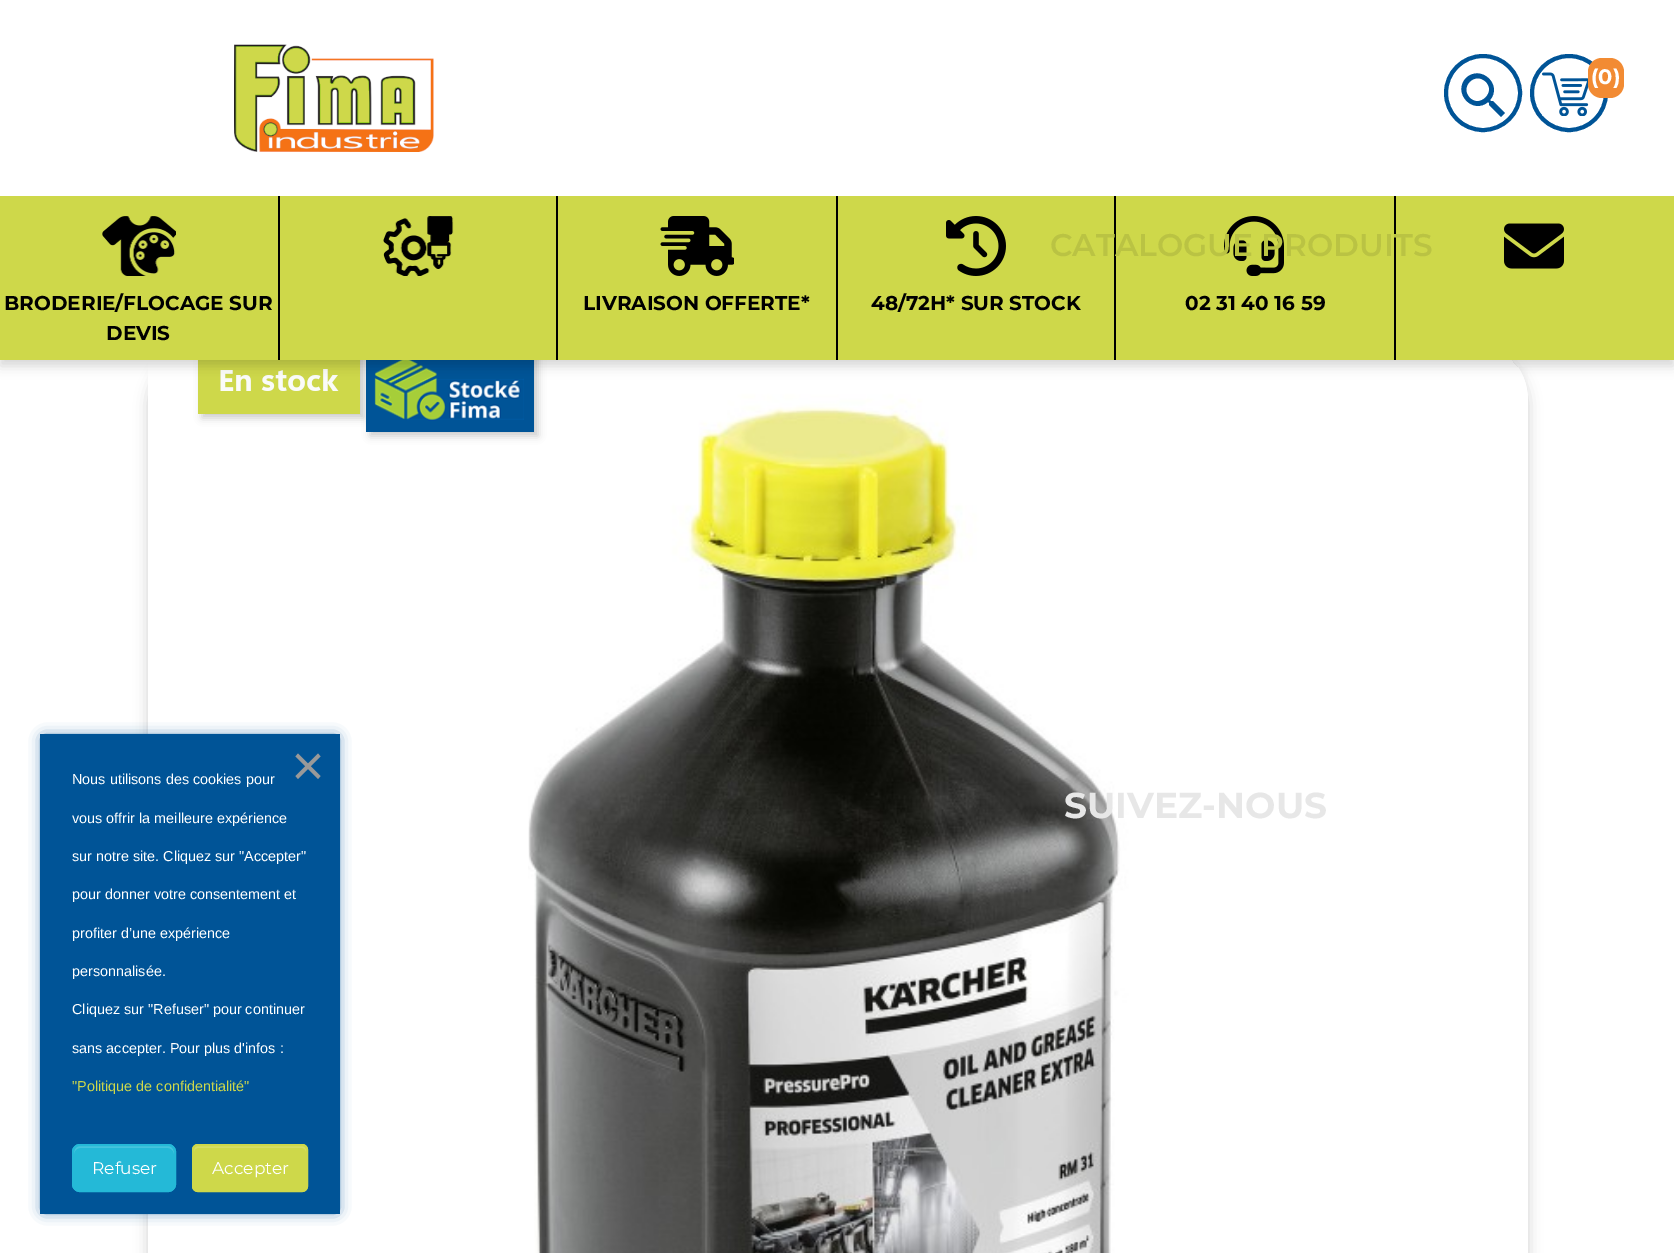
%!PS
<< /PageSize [1674 1253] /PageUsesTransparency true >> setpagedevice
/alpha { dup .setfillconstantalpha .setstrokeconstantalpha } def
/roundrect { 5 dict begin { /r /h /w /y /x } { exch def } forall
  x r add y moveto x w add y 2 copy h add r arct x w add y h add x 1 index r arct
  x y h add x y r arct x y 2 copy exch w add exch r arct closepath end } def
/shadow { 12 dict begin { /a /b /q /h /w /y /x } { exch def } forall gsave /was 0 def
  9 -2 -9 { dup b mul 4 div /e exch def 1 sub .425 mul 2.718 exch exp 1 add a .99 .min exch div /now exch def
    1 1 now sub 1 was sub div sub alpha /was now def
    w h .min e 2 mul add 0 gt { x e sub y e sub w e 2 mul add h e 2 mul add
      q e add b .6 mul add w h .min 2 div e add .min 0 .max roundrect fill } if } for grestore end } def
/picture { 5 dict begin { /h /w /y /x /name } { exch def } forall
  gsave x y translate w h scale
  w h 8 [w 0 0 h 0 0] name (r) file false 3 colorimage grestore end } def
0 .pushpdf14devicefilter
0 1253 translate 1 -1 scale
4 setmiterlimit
1 setgray
0 0 1674 1253 rectfill
gsave
newpath 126 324 moveto 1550 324 lineto 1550 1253 lineto 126 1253 lineto closepath 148 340 moveto 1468 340 lineto 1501 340 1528 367 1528 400 curveto 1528 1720 lineto 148 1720 lineto closepath eoclip newpath
0 setgray
148 346 1380 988 60 7 0.18 shadow
grestore
(img9.rgb) 528 367 1000 886 picture
0 setgray
202 356 162 62 0 4 0.2 shadow
0.808 0.847 0.29 setrgbcolor
198 360 162 54 rectfill
(img10.rgb) 220 369 119 22 picture
0 setgray
370 354 168 82 0 4 0.2 shadow
0 0.329 0.592 setrgbcolor
366 360 168 72 rectfill
(img11.rgb) 374 360 150 61 picture
0 setgray
0 6 1674 360 0 6 0.16 shadow
1 setgray
0 0 1674 196 rectfill
0.808 0.847 0.29 setrgbcolor
0 196 1674 164 rectfill
0 setgray
556 196 2 164 rectfill
(img1.rgb) 383 216 71 60 picture
(img2.rgb) 1504 223 60 46 picture
278 196 2 164 rectfill
(img3.rgb) 102 216 74 60 picture
/Montserrat-Bold [20 0 0 -20 0 0] selectfont
4 310 moveto (BRODERIE/FLOCAGE SUR) show
106 340 moveto (DEVIS) show
836 196 2 164 rectfill
(img4.rgb) 660 216 74 60 picture
583 310 moveto (LIVRAISON OFFERTE*) show
1114 196 2 164 rectfill
(img5.rgb) 946 216 60 60 picture
871 310 moveto (48/72H* SUR STOCK) show
1394 196 2 164 rectfill
(img6.rgb) 1224 216 60 60 picture
1185 310 moveto (02 31 40 16 59) show
(img7.rgb) 234 44 200 108 picture
0 0.329 0.592 setrgbcolor
4 setlinewidth
newpath 1483 93 37 0 360 arc closepath stroke
newpath 1470 98 moveto 1480 108 1496 92 1486 82 curveto 1475 71 1459 87 1470 98 curveto closepath 1493 101 moveto 1505 113 lineto 1501 117 lineto 1489 105 lineto 1489 103 lineto 1488 102 lineto 1473 115 1452 93 1466 78 curveto 1481 64 1503 85 1490 100 curveto 1491 101 lineto closepath fill
newpath 1569 93 37 0 360 arc closepath stroke
(img8.rgb) 1542 72 47 44 picture
0.949 0.545 0.2 setrgbcolor
1588 58 36 40 14 roundrect fill
/Montserrat-Bold [21 0 0 -21 0 0] selectfont
1 setgray
1591 84 moveto (\(0\)) show
/Montserrat-SemiBold [31.25 0 0 -31.25 0 0] selectfont
0.729 0.765 0.263 setrgbcolor
1050 256 moveto (CATALOGUE PRODUITS) show
/Montserrat-Bold [36 0 0 -36 0 0] selectfont
0.906 setgray
1064 818 moveto (SUIVEZ-NOUS) show
0 0.329 0.592 setrgbcolor
44 738 292 472 0 7 1 shadow
40 734 300 480 rectfill
0.6 setgray
newpath 295.5 776 moveto 318 753.5 lineto 320.5 756.5 lineto 298 779 lineto closepath fill
newpath 298 753.5 moveto 320.5 776 lineto 318 779 lineto 295.5 756.5 lineto closepath fill
/LiberationSans-Regular [14.4 0 0 -14.4 0 0] selectfont
1 setgray
72 784 moveto (Nous utilisons des cookies pour) show
72 823 moveto (vous offrir la meilleure expérience) show
72 861 moveto (sur notre site. Cliquez sur "Accepter") show
72 899 moveto (pour donner votre consentement et) show
72 938 moveto (profiter d’une expérience) show
72 976 moveto (personnalisée.) show
72 1014 moveto (Cliquez sur "Refuser" pour continuer) show
72 1053 moveto (sans accepter. Pour plus d'infos :) show
0.808 0.847 0.29 setrgbcolor
72 1091 moveto ("Politique de confidentialité") show
0.141 0.725 0.843 setrgbcolor
72 1144 104 48 8 roundrect fill
0.271 0.769 0.867 setrgbcolor
newpath 80 1148 moveto 168 1148 lineto 171 1148 174 1151 174 1154 curveto 174 1142 162 1146 153 1146 curveto 95 1146 lineto 86 1146 74 1142 74 1154 curveto 74 1151 77 1148 80 1148 curveto closepath fill
0.141 0.725 0.843 setrgbcolor
2 setlinewidth
73 1145 102 46 7 roundrect stroke
/Montserrat-Regular [17 0 0 -17 0 0] selectfont
1 setgray
92 1174 moveto (Refuser) show
0.808 0.847 0.29 setrgbcolor
192 1144 116 48 6 roundrect fill
0.835 0.871 0.396 setrgbcolor
newpath 198 1148 moveto 302 1148 lineto 304 1148 306 1150 306 1152 curveto 306 1150 lineto 306 1148 304 1146 302 1146 curveto 198 1146 lineto 196 1146 194 1148 194 1150 curveto 194 1152 lineto 194 1150 196 1148 198 1148 curveto closepath fill
0.808 0.847 0.29 setrgbcolor
193 1145 114 46 5 roundrect stroke
1 setgray
212 1174 moveto (Accepter) show
.poppdf14devicefilter showpage
